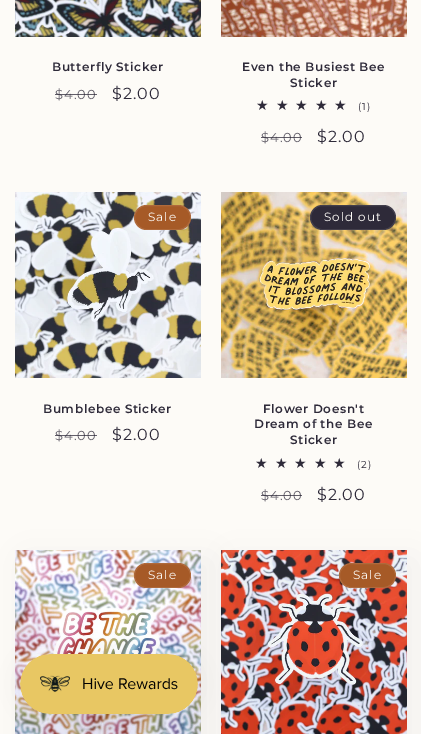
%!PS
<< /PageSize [421 734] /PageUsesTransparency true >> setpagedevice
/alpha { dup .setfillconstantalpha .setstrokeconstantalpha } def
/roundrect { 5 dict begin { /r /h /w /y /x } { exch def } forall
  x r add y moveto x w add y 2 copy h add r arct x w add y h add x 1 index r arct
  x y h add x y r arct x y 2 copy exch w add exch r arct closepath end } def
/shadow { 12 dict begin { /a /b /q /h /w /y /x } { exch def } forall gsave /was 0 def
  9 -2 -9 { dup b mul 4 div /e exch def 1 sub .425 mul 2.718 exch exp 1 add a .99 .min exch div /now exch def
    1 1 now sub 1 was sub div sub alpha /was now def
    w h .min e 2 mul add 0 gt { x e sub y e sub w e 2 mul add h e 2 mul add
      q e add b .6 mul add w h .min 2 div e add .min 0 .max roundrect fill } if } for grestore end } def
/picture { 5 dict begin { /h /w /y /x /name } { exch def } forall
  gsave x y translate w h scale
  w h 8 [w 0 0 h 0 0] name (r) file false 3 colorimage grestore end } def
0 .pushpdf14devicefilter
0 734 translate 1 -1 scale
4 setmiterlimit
0.992 0.984 0.969 setrgbcolor
0 0 421 734 rectfill
(img1.rgb) 15 0 186 37 picture
/Montserrat-SemiBold [12 0 0 -12 0 0] selectfont
0.18 0.165 0.224 setrgbcolor
52 71 moveto 0.6 0 (Butterfly Sticker) ashow
/Montserrat-Thin [13 0 0 -13 0 0] selectfont
0.384 0.369 0.412 setrgbcolor
55 99 moveto 1 0 ($4.00) ashow
0.75 alpha
0.18 0.165 0.224 setrgbcolor
55 94 42 1 rectfill
/Montserrat-Thin [16 0 0 -16 0 0] selectfont
1 alpha
112 99 moveto 1 0 ($2.00) ashow
(img2.rgb) 221 0 186 37 picture
/Montserrat-SemiBold [12 0 0 -12 0 0] selectfont
242 71 moveto 0.6 0 (Even the Busiest Bee) ashow
290 87 moveto 0.6 0 (Sticker) ashow
/DejaVuSans-Regular [14 0 0 -14 0 0] selectfont
256 110 moveto 7 0 (★★★★★) ashow
/Montserrat-Thin [10 0 0 -10 0 0] selectfont
358 110 moveto 1 0 (\(1\)) ashow
/Montserrat-Thin [13 0 0 -13 0 0] selectfont
0.384 0.369 0.412 setrgbcolor
261 142 moveto 1 0 ($4.00) ashow
0.75 alpha
0.18 0.165 0.224 setrgbcolor
261 137 41 1 rectfill
/Montserrat-Thin [16 0 0 -16 0 0] selectfont
1 alpha
317 142 moveto 1 0 ($2.00) ashow
(img3.rgb) 15 192 186 186 picture
0.651 0.353 0.153 setrgbcolor
134 205 57 25 12.5 roundrect fill
0.1 alpha
0.992 0.984 0.969 setrgbcolor
134.5 205.5 56 24 12 roundrect stroke
/Montserrat-Thin [12 0 0 -12 0 0] selectfont
1 alpha
148 221 moveto 1 0 (Sale) ashow
/Montserrat-SemiBold [12 0 0 -12 0 0] selectfont
0.18 0.165 0.224 setrgbcolor
43 413 moveto 0.6 0 (Bumblebee Sticker) ashow
/Montserrat-Thin [13 0 0 -13 0 0] selectfont
0.384 0.369 0.412 setrgbcolor
55 440 moveto 1 0 ($4.00) ashow
0.75 alpha
0.18 0.165 0.224 setrgbcolor
55 435 42 1 rectfill
/Montserrat-Thin [16 0 0 -16 0 0] selectfont
1 alpha
112 440 moveto 1 0 ($2.00) ashow
(img4.rgb) 221 192 186 186 picture
310 205 86 25 12.5 roundrect fill
0.1 alpha
0.992 0.984 0.969 setrgbcolor
310.5 205.5 85 24 12 roundrect stroke
/Montserrat-Thin [12 0 0 -12 0 0] selectfont
1 alpha
324 221 moveto 1 0 (Sold out) ashow
/Montserrat-SemiBold [12 0 0 -12 0 0] selectfont
0.18 0.165 0.224 setrgbcolor
263 413 moveto 0.6 0 (Flower Doesn't) ashow
254 428 moveto 0.6 0 (Dream of the Bee) ashow
290 444 moveto 0.6 0 (Sticker) ashow
/DejaVuSans-Regular [14 0 0 -14 0 0] selectfont
255 468 moveto 7 0 (★★★★★) ashow
/Montserrat-Thin [10 0 0 -10 0 0] selectfont
357 468 moveto 1 0 (\(2\)) ashow
/Montserrat-Thin [13 0 0 -13 0 0] selectfont
0.384 0.369 0.412 setrgbcolor
261 500 moveto 1 0 ($4.00) ashow
0.75 alpha
0.18 0.165 0.224 setrgbcolor
261 495 41 1 rectfill
/Montserrat-Thin [16 0 0 -16 0 0] selectfont
1 alpha
317 500 moveto 1 0 ($2.00) ashow
25 560 186 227 0 17.5 0.05 shadow
(img5.rgb) 15 550 186 184 picture
0.651 0.353 0.153 setrgbcolor
134 563 57 25 12.5 roundrect fill
0.1 alpha
0.992 0.984 0.969 setrgbcolor
134.5 563.5 56 24 12 roundrect stroke
/Montserrat-Thin [12 0 0 -12 0 0] selectfont
1 alpha
148 579 moveto 1 0 (Sale) ashow
0.18 0.165 0.224 setrgbcolor
231 560 185 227 0 17.5 0.05 shadow
(img6.rgb) 221 550 186 184 picture
0.651 0.353 0.153 setrgbcolor
339 563 57 25 12.5 roundrect fill
0.1 alpha
0.992 0.984 0.969 setrgbcolor
339.5 563.5 56 24 12 roundrect stroke
1 alpha
353 579 moveto 1 0 (Sale) ashow
0 setgray
20 654 178 60 30 12.5 0.05 shadow
(img7.rgb) 20 654 178 60 picture
.poppdf14devicefilter showpage
